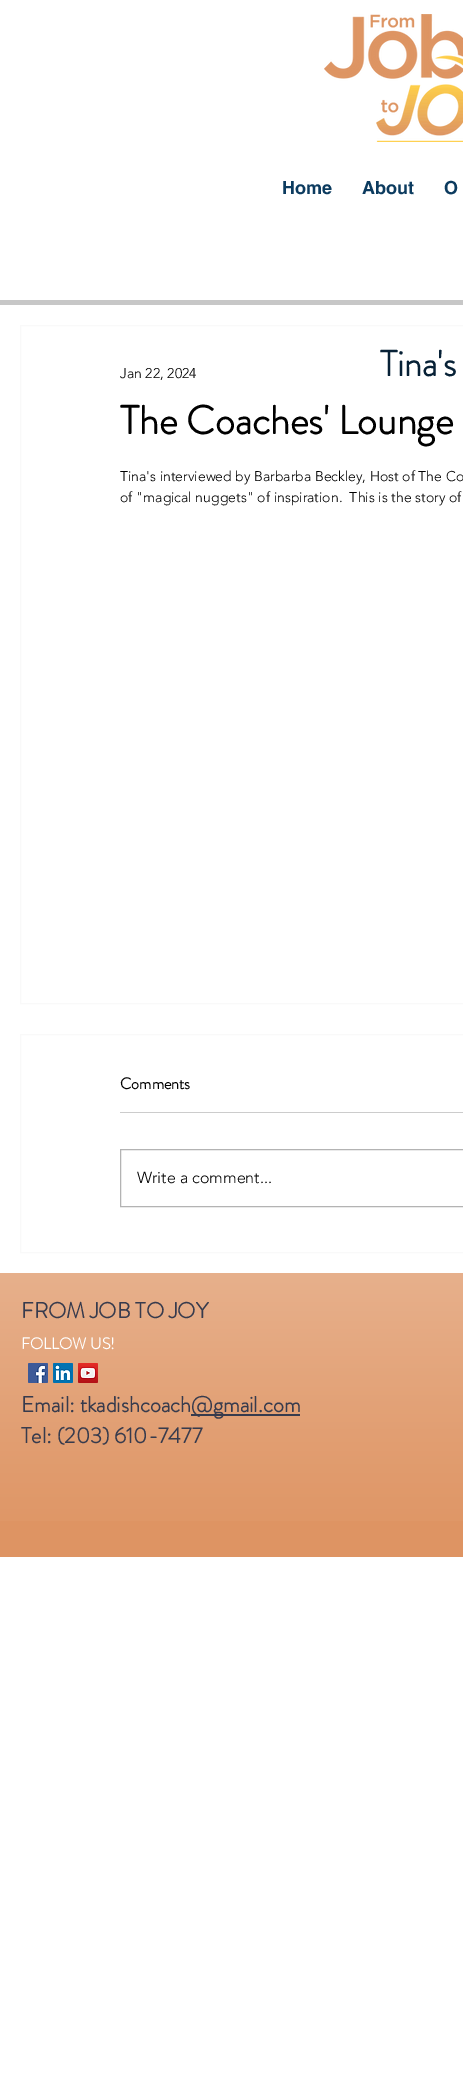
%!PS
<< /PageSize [463 2086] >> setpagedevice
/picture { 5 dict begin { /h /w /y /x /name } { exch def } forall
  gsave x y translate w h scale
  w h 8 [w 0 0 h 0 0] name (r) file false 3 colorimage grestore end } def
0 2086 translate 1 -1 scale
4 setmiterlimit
1 setgray
0 0 463 2086 rectfill
(img1.rgb) 324 14 139 128 picture
/helvetica-Bold [18 0 0 -18 0 0] selectfont
0.047 0.231 0.373 setrgbcolor
282 194 moveto (Home) show
362 194 moveto (About) show
444 194 moveto (O) show
0.78 setgray
0 300 463 5 rectfill
0.976 setgray
20.5 325.5 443 678 rectstroke
/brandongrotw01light-Bold [36 0 0 -36 0 0] selectfont
0.027 0.129 0.212 setrgbcolor
380 376 moveto (Tina's) show
/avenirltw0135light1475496-Light [14 0 0 -14 0 0] selectfont
0 setgray
120 378 moveto (Jan 22, 2024) show
/brandongrotw01light-Bold [40 0 0 -40 0 0] selectfont
120 434 moveto (The Coaches' Lounge) show
/avenirltw0135light1475496-Light [14 0 0 -14 0 0] selectfont
120 481 moveto (Tina's interviewed by Barbarba Beckley, Host of The Co) show
120 502 moveto (of "magical nuggets" of inspiration.  This is the story of) show
0.976 setgray
20.5 1034.5 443 218 rectstroke
/brandongrotw01light-Bold [16 0 0 -16 0 0] selectfont
0 setgray
120 1089 moveto (Comments) show
0.8 setgray
120 1112 343 1 rectfill
0.702 setgray
120.5 1149.5 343 57 rectstroke
/avenirltw0135light1475496-Light [16 0 0 -16 0 0] selectfont
0 setgray
137 1183 moveto (Write a comment...) show
0.871 0.58 0.388 setrgbcolor
0 1273 463 284 rectfill
(img2.rgb) 0 1273 463 248 picture
/brandongrotw01light-Bold [22 0 0 -22 0 0] selectfont
0.216 0.231 0.302 setrgbcolor
21 1318 moveto (FROM JOB TO JOY) show
/brandongrotw01light-Bold [16 0 0 -16 0 0] selectfont
1 setgray
21 1349 moveto (FOLLOW US!) show
/brandongrotw01light-Bold [22 0 0 -22 0 0] selectfont
0.216 0.231 0.302 setrgbcolor
21 1412 moveto (Email: tkadishcoach) show
191 1414 109 2 rectfill
191 1412 moveto (@gmail.com) show
21 1443 moveto (Tel: \(203\) 610-7477) show
(img3.rgb) 28 1363 20 20 picture
(img4.rgb) 53 1363 20 20 picture
(img5.rgb) 78 1363 20 20 picture
showpage
